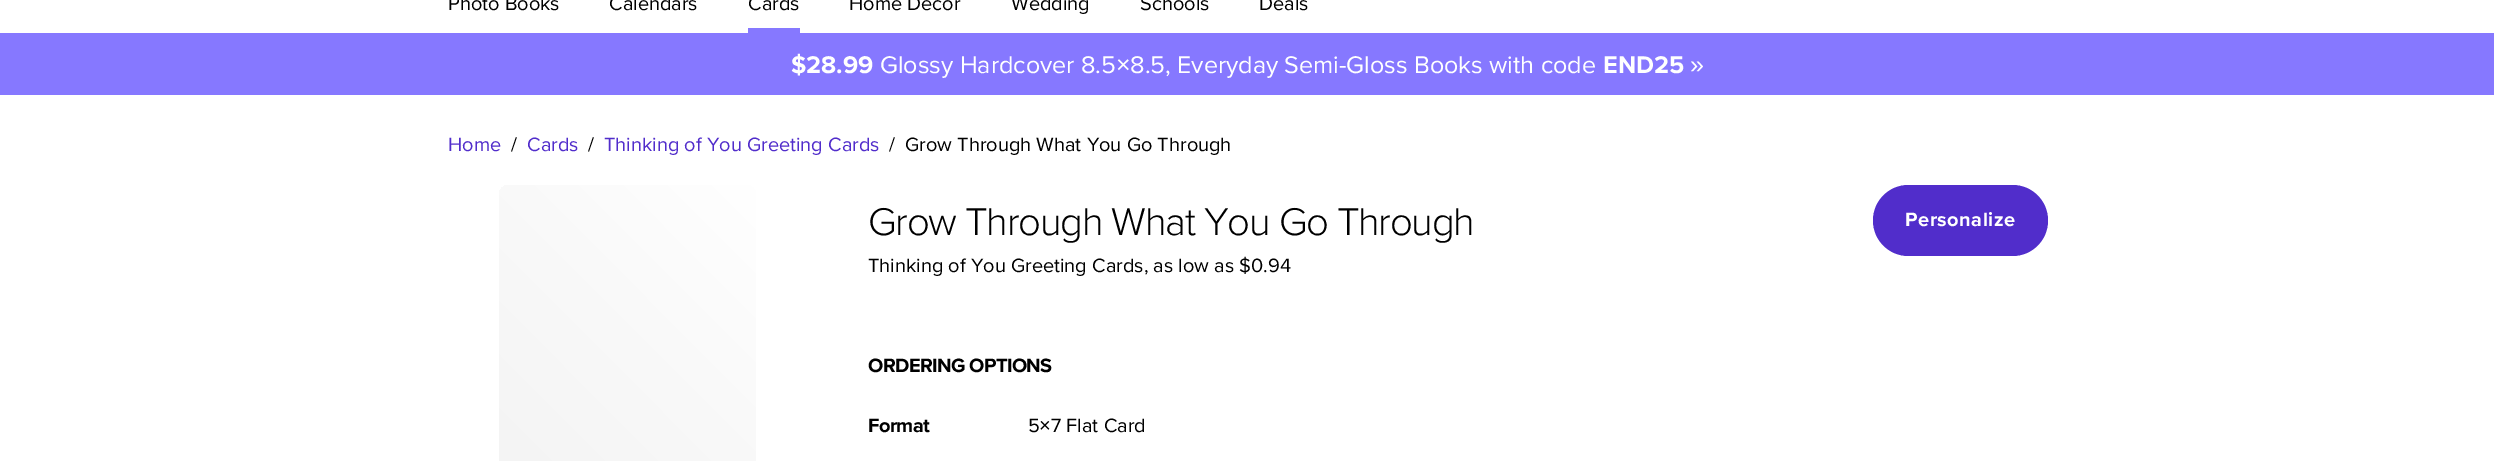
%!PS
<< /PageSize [2494 461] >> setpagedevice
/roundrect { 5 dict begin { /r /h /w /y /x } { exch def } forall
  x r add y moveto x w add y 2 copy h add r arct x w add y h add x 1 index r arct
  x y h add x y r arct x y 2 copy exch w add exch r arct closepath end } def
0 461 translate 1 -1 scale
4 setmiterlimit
1 setgray
0 0 2494 461 rectfill
/ProximaNova-Regular [20 0 0 -20 0 0] selectfont
0 setgray
448 10 moveto (Photo Books) show
609 10 moveto (Calendars) show
748 10 moveto (Cards) show
0.525 0.471 1 setrgbcolor
748 28 52 5 rectfill
0 setgray
849 10 moveto (Home Decor) show
1011 10 moveto (Wedding) show
1140 10 moveto (Schools) show
1259 10 moveto (Deals) show
0.525 0.471 1 setrgbcolor
0 33 2494 62 rectfill
/ProximaNova-Bold [25 0 0 -25 0 0] selectfont
1 setgray
791 73 moveto ($28.99) show
/ProximaNova-Regular [25 0 0 -25 0 0] selectfont
880 73 moveto (Glossy Hardcover 8.5) show
/LiberationSans-Regular [25 0 0 -25 0 0] selectfont
1116 73 moveto (×) show
/ProximaNova-Regular [25 0 0 -25 0 0] selectfont
1130 73 moveto (8.5, Everyday Semi-Gloss Books with code) show
/ProximaNova-Bold [25 0 0 -25 0 0] selectfont
1603 73 moveto (END25) show
/LiberationSans-Regular [25 0 0 -25 0 0] selectfont
1690 73 moveto (») show
/ProximaNova-Regular [20 0 0 -20 0 0] selectfont
0.318 0.176 0.796 setrgbcolor
448 151 moveto (Home) show
0 setgray
511 151 moveto (/) show
0.318 0.176 0.796 setrgbcolor
527 151 moveto (Cards) show
0 setgray
588 151 moveto (/) show
0.318 0.176 0.796 setrgbcolor
604 151 moveto (Thinking of You Greeting Cards) show
0 setgray
889 151 moveto (/) show
905 151 moveto (Grow Through What You Go Through) show
gsave 499 185 257 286 10 roundrect clip newpath
<< /ShadingType 2 /ColorSpace /DeviceRGB /Coords [473 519 782 211] /Extend [true true] /Function << /FunctionType 2 /Domain [0 1] /C0 [0.949 0.949 0.949] /C1 [1 1 1] /N 1 >> >> shfill grestore
/ProximaNova-Light [40 0 0 -40 0 0] selectfont
868 235 moveto -1.2 0 (Grow Through What You Go Through) ashow
0.318 0.176 0.796 setrgbcolor
1873 185 175 71 35.5 roundrect fill
/ProximaNova-Bold [20 0 0 -20 0 0] selectfont
1 setgray
1905 226 moveto 0.5 0 (Personalize) ashow
/ProximaNova-Regular [20 0 0 -20 0 0] selectfont
0 setgray
868 272 moveto (Thinking of You Greeting Cards, as low as $0.94) show
/ProximaNova-Bold [20 0 0 -20 0 0] selectfont
868 372 moveto -0.6 0 (ORDERING OPTIONS) ashow
868 432 moveto -0.6 0 (Format) ashow
/ProximaNova-Regular [20 0 0 -20 0 0] selectfont
1028 432 moveto (5) show
/LiberationSans-Regular [20 0 0 -20 0 0] selectfont
1039 432 moveto (×) show
/ProximaNova-Regular [20 0 0 -20 0 0] selectfont
1051 432 moveto (7 Flat Card) show
showpage
